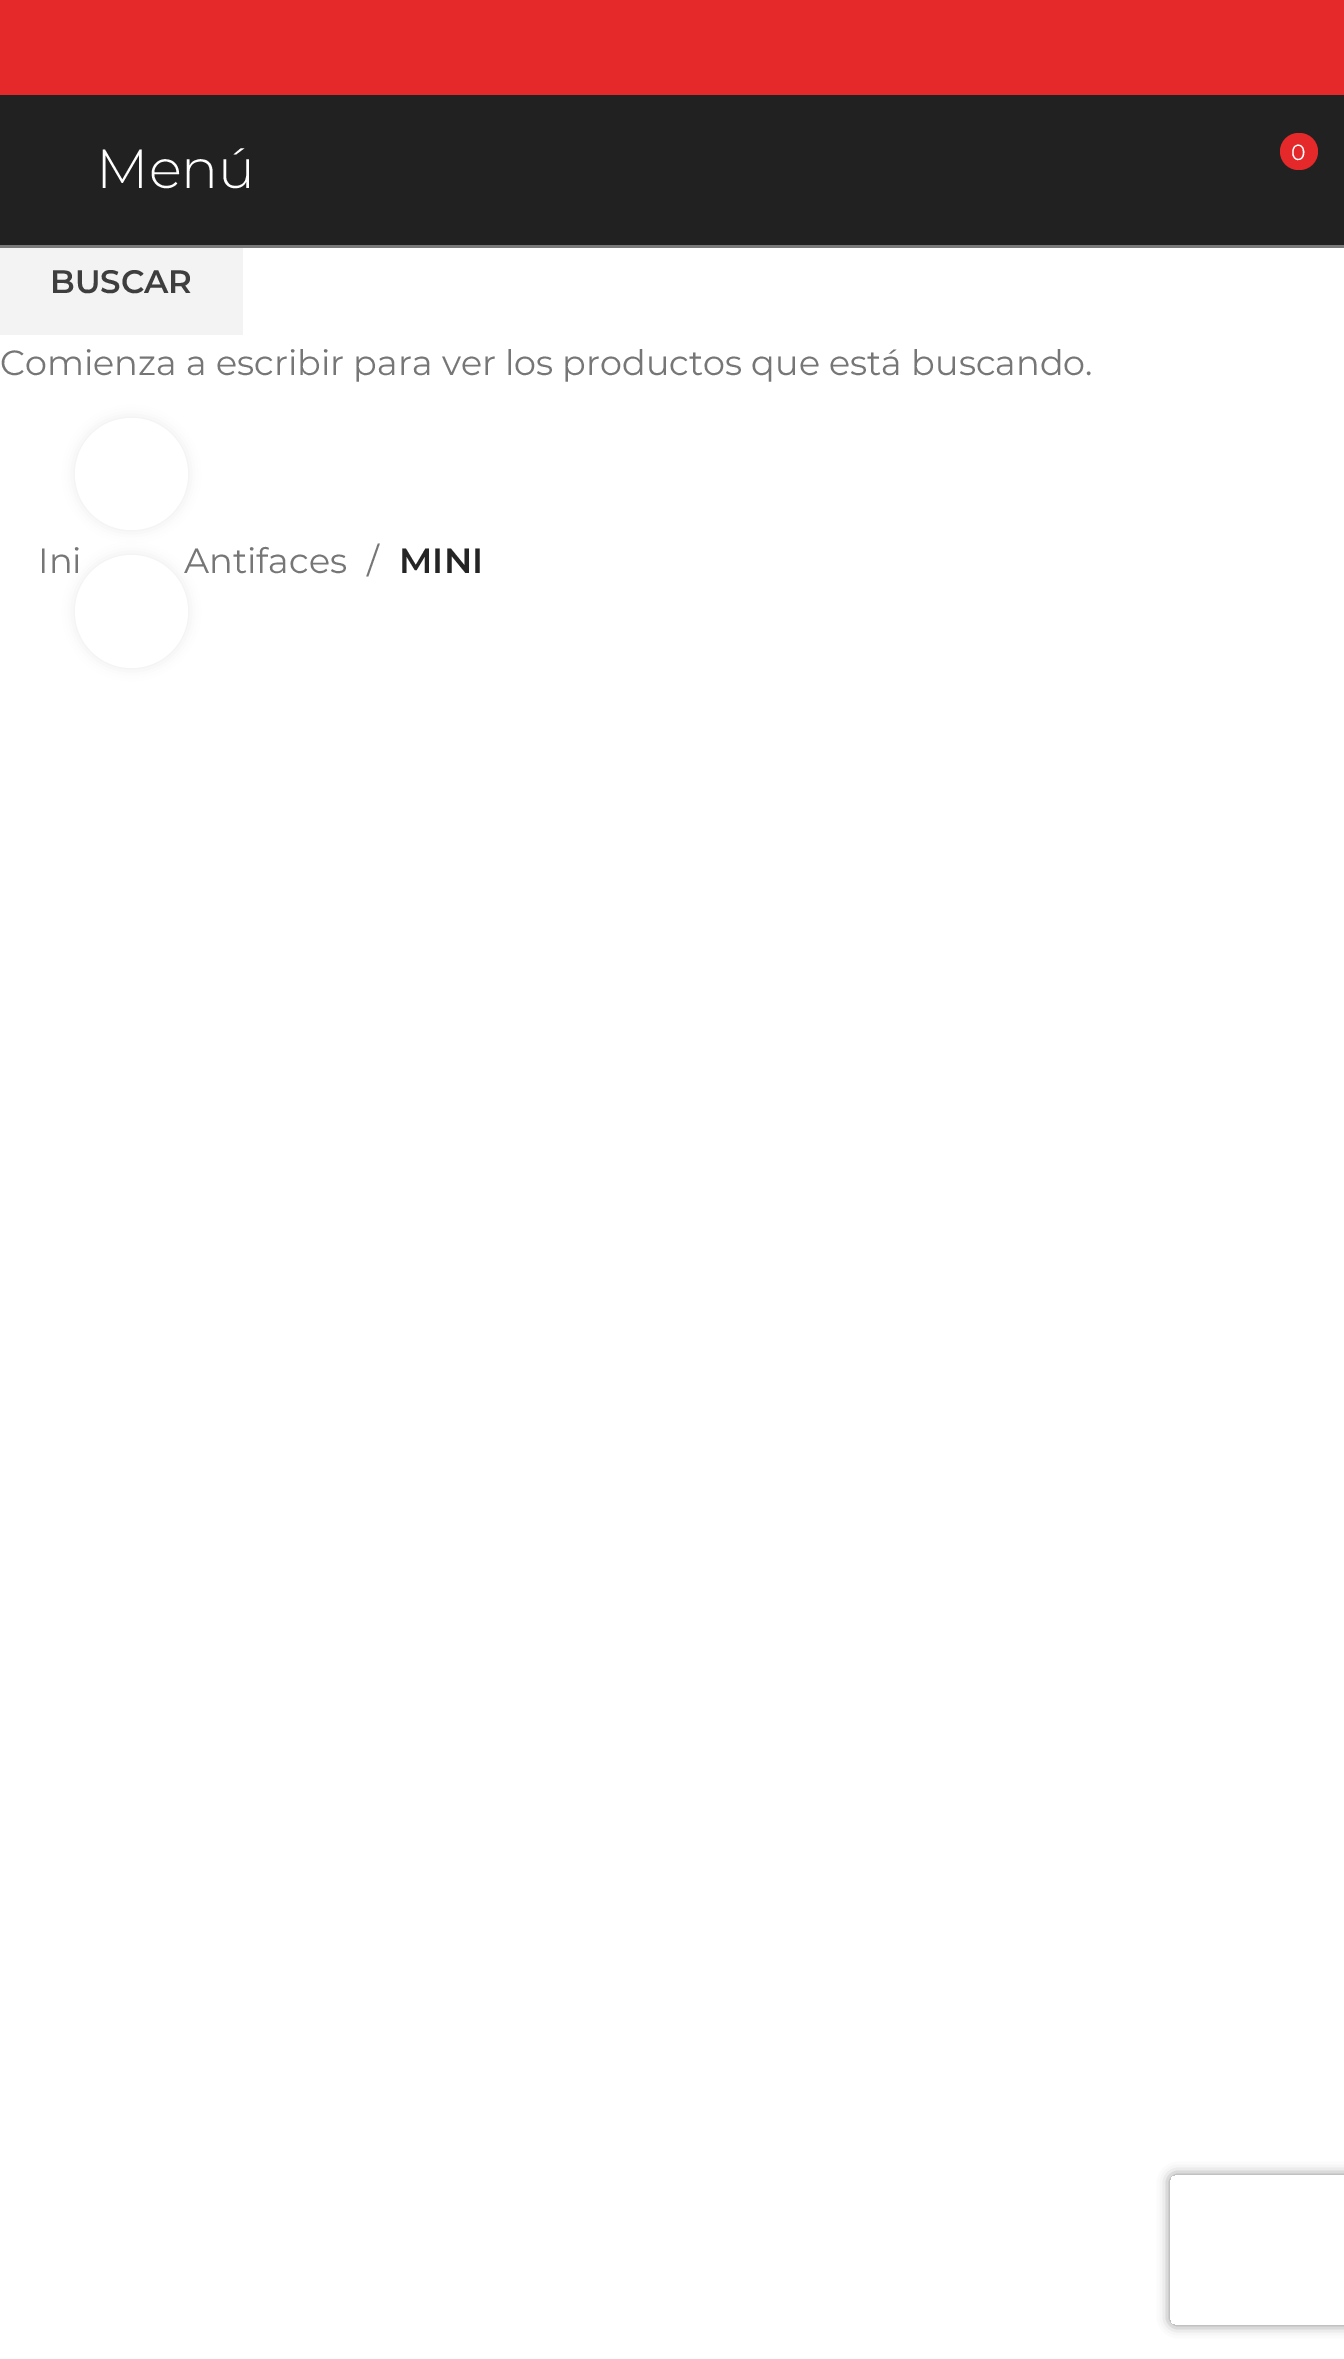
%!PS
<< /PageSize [1344 2359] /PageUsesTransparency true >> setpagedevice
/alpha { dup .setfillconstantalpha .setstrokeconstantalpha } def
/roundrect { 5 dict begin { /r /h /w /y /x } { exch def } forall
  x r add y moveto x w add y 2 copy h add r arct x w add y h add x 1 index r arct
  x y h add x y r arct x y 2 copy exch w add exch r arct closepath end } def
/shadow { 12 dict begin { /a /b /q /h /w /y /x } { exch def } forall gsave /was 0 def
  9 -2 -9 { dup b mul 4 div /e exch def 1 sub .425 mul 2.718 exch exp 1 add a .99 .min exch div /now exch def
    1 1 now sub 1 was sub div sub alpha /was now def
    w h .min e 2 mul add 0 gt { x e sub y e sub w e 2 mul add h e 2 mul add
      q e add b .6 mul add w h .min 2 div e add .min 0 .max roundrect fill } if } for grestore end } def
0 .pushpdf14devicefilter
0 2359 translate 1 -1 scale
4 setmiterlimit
1 setgray
0 0 1344 2359 rectfill
0.898 0.161 0.165 setrgbcolor
0 0 1344 95 rectfill
0.129 setgray
0 95 1344 150 rectfill
0.478 setgray
0 245 1344 3 rectfill
/Montserrat-Light [55 0 0 -55 0 0] selectfont
1 setgray
96 188 moveto (Menú) show
0.898 0.161 0.165 setrgbcolor
1280 133 38 37 18.5 roundrect fill
/Montserrat-Regular [22 0 0 -22 0 0] selectfont
1 setgray
1291 160 moveto (0) show
0 setgray
75 418 113 112 56 6 0.08 shadow
1 setgray
75 418 113 112 56 roundrect fill
0 setgray
75 555 113 113 56.5 6 0.08 shadow
/Montserrat-Regular [35 0 0 -35 0 0] selectfont
0.463 setgray
38 573 moveto (Ini) show
184 573 moveto (Antifaces) show
1 setgray
newpath 131.5 611.5 56.5 0 360 arc closepath fill
0.463 setgray
367 573 moveto (/) show
/Montserrat-SemiBold [35 0 0 -35 0 0] selectfont
0.141 setgray
399 573 moveto (MINI) show
0.953 setgray
0 248 243 87 rectfill
/Montserrat-SemiBold [32.5 0 0 -32.5 0 0] selectfont
0.243 setgray
50 293 moveto (BUSCAR) show
/Montserrat-Regular [35 0 0 -35 0 0] selectfont
0.463 setgray
0 375 moveto (Comienza a escribir para ver los productos que está buscando.) show
gsave
newpath 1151 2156 moveto 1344 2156 lineto 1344 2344 lineto 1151 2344 lineto closepath 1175 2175 moveto 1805 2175 lineto 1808 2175 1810 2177 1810 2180 curveto 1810 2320 lineto 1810 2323 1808 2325 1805 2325 curveto 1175 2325 lineto 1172 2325 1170 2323 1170 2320 curveto 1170 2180 lineto 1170 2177 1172 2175 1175 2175 curveto closepath eoclip newpath
0.502 setgray
1170 2175 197 150 5 6 1 shadow
grestore
.poppdf14devicefilter showpage
